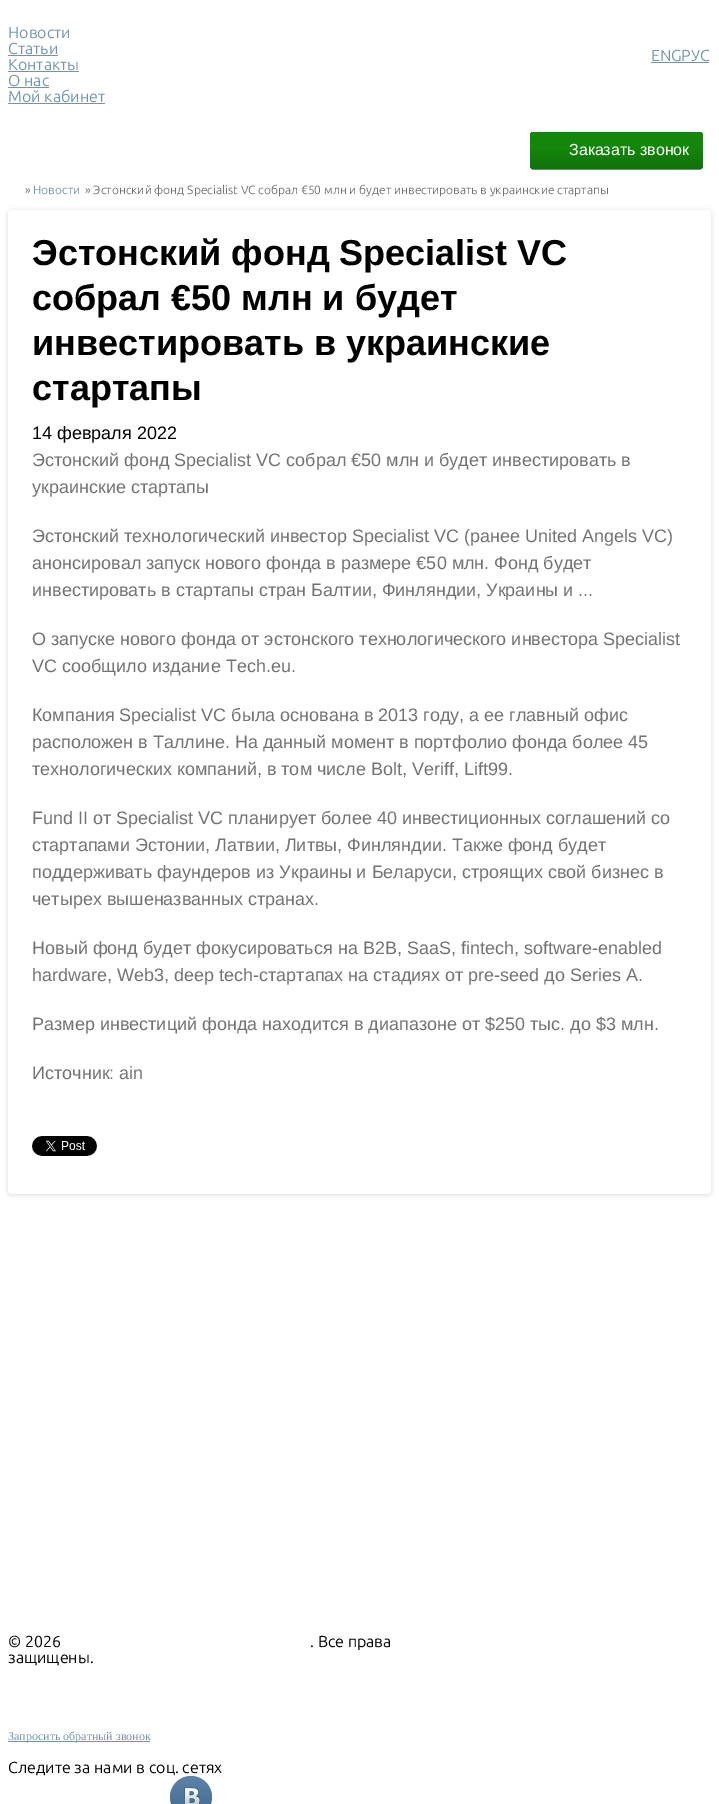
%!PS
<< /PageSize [719 1804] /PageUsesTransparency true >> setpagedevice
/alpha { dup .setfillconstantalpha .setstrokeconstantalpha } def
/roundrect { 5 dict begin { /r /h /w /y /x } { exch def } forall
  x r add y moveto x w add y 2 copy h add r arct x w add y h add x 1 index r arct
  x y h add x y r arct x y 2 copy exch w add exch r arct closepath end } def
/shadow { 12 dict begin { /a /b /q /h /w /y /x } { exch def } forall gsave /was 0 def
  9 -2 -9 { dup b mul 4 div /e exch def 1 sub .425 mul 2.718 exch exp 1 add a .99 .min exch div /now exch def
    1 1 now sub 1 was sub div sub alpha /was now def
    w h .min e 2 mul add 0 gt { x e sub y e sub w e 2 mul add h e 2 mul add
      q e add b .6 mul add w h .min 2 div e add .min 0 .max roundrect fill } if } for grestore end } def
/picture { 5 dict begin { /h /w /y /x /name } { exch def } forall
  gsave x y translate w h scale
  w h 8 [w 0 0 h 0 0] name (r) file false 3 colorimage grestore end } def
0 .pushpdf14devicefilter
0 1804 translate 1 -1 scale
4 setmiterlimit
1 setgray
0 0 719 1804 rectfill
/Ubuntu-Regular [16 0 0 -16 0 0] selectfont
0.443 0.588 0.675 setrgbcolor
8 38 moveto (Новости) show
8 54 moveto (Статьи) show
8 55 50 1 rectfill
8 70 moveto (Контакты) show
8 71 71 1 rectfill
8 86 moveto (О нас) show
8 87 41 1 rectfill
8 102 moveto (Мой кабинет) show
8 103 97 1 rectfill
651 61 moveto (ENG) show
681 61 moveto (РУС) show
651 62 58 1 rectfill
0.498 setgray
newpath 530 165 moveto 530 166 lineto 530 168 532 170 534 170 curveto 699 170 lineto 701 170 703 168 703 166 curveto 703 165 lineto 703 167 701 169 699 169 curveto 534 169 lineto 532 169 530 167 530 165 curveto closepath fill
gsave 530 132 173 37 4 roundrect clip newpath
<< /ShadingType 2 /ColorSpace /DeviceRGB /Coords [617 132 617 169] /Extend [true true] /Function << /FunctionType 3 /Domain [0 1] /Functions [<< /FunctionType 2 /Domain [0 1] /C0 [0.075 0.537 0.043] /C1 [0.075 0.525 0.043] /N 1 >> << /FunctionType 2 /Domain [0 1] /C0 [0.075 0.525 0.043] /C1 [0.067 0.443 0.039] /N 1 >>] /Bounds [0.46] /Encode [0 1 0 1] >> >> shfill grestore
/LiberationSans-Regular [16 0 0 -16 0 0] selectfont
1 setgray
569 155 moveto (Заказать звонок) show
/Ubuntu-Regular [12 0 0 -12 0 0] selectfont
0.451 setgray
25 194 moveto (») show
0.443 0.588 0.675 setrgbcolor
33 194 moveto (Новости) show
0.451 setgray
85 194 moveto (» Эстонский фонд Specialist VC собрал €50 млн и будет инвестировать в украинские стартапы) show
0 setgray
7 210 705 986 5 2 0.1 shadow
1 setgray
8 210 703 984 4 roundrect fill
/LiberationSans-Bold [36 0 0 -36 0 0] selectfont
0 setgray
32 265 moveto (Эстонский фонд Specialist VC) show
32 310 moveto (собрал €50 млн и будет) show
32 355 moveto (инвестировать в украинские) show
32 400 moveto (стартапы) show
/LiberationSans-Regular [18 0 0 -18 0 0] selectfont
32 439 moveto (14 февраля 2022) show
0.451 setgray
32 466 moveto (Эстонский фонд Specialist VC собрал €50 млн и будет инвестировать в) show
32 493 moveto (украинские стартапы) show
32 542 moveto (Эстонский технологический инвестор Specialist VC \(ранее United Angels VC\)) show
32 569 moveto (анонсировал запуск нового фонда в размере €50 млн. Фонд будет) show
32 596 moveto (инвестировать в стартапы стран Балтии, Финляндии, Украины и ...) show
32 645 moveto (О запуске нового фонда от эстонского технологического инвестора Specialist) show
32 672 moveto (VC сообщило издание Tech.eu.) show
32 721 moveto (Компания Specialist VC была основана в 2013 году, а ее главный офис) show
32 748 moveto (расположен в Таллине. На данный момент в портфолио фонда более 45) show
32 775 moveto (технологических компаний, в том числе Bolt, Veriff, Lift99.) show
32 824 moveto (Fund II от Specialist VC планирует более 40 инвестиционных соглашений со) show
32 851 moveto (стартапами Эстонии, Латвии, Литвы, Финляндии. Также фонд будет) show
32 878 moveto (поддерживать фаундеров из Украины и Беларуси, строящих свой бизнес в) show
32 905 moveto (четырех вышеназванных странах.) show
32 954 moveto (Новый фонд будет фокусироваться на B2B, SaaS, fintech, software-enabled) show
32 981 moveto (hardware, Web3, deep tech-стартапах на стадиях от pre-seed до Series A.) show
32 1030 moveto (Размер инвестиций фонда находится в диапазоне от $250 тыс. до $3 млн.) show
32 1079 moveto (Источник: ain) show
(img1.rgb) 32 1136 65 20 picture
/Ubuntu-Regular [16 0 0 -16 0 0] selectfont
0 setgray
8 1647 moveto (© 2026) show
310 1647 moveto (. Все права) show
8 1663 moveto (защищены.) show
0.443 0.588 0.675 setrgbcolor
8 1741 142 1 rectfill
/LiberationSerif-Regular [12 0 0 -12 0 0] selectfont
8 1740 moveto (Запросить обратный звонок) show
/Ubuntu-Regular [16 0 0 -16 0 0] selectfont
0 setgray
8 1773 moveto (Следите за нами в соц. сетях) show
(img2.rgb) 170 1776 42 28 picture
.poppdf14devicefilter showpage
